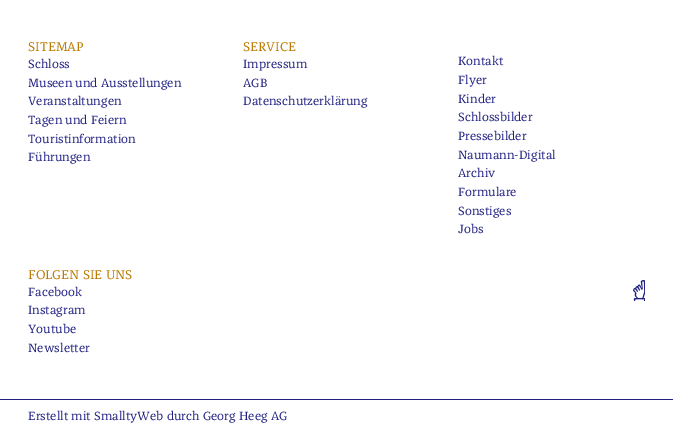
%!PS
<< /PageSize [673 432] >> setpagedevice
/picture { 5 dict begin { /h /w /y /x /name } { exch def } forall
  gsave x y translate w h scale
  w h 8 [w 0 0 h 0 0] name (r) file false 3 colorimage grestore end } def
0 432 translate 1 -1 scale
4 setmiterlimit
1 setgray
0 0 673 432 rectfill
/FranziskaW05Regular-Regular [13.25 0 0 -13.25 0 0] selectfont
0.733 0.478 0.008 setrgbcolor
28 51 moveto (SITEMAP) show
/FranziskaW05Regular-Regular [12.45 0 0 -12.45 0 0] selectfont
0.129 0.129 0.51 setrgbcolor
28 68 moveto (Schloss) show
28 87 moveto (Museen und Ausstellungen) show
28 105 moveto (Veranstaltungen) show
28 124 moveto (Tagen und Feiern) show
28 143 moveto (Touristinformation) show
28 161 moveto (Führungen) show
/FranziskaW05Regular-Regular [13.25 0 0 -13.25 0 0] selectfont
0.733 0.478 0.008 setrgbcolor
243 51 moveto (SERVICE) show
/FranziskaW05Regular-Regular [12.45 0 0 -12.45 0 0] selectfont
0.129 0.129 0.51 setrgbcolor
243 68 moveto (Impressum) show
243 87 moveto (AGB) show
243 105 moveto (Datenschutzerklärung) show
458 65 moveto (Kontakt) show
458 84 moveto (Flyer) show
458 103 moveto (Kinder) show
458 121 moveto (Schlossbilder) show
458 140 moveto (Pressebilder) show
458 159 moveto (Naumann-Digital) show
458 177 moveto (Archiv) show
458 196 moveto (Formulare) show
458 215 moveto (Sonstiges) show
458 233 moveto (Jobs) show
/FranziskaW05Regular-Regular [13.25 0 0 -13.25 0 0] selectfont
0.733 0.478 0.008 setrgbcolor
28 279 moveto (FOLGEN SIE UNS) show
/FranziskaW05Regular-Regular [12.45 0 0 -12.45 0 0] selectfont
0.129 0.129 0.51 setrgbcolor
28 296 moveto (Facebook) show
28 314 moveto (Instagram) show
28 333 moveto (Youtube) show
28 352 moveto (Newsletter) show
(img1.rgb) 633 280 12 21 picture
0 399 673 1 rectfill
28 420 moveto (Erstellt mit SmalltyWeb durch Georg Heeg AG) show
showpage
